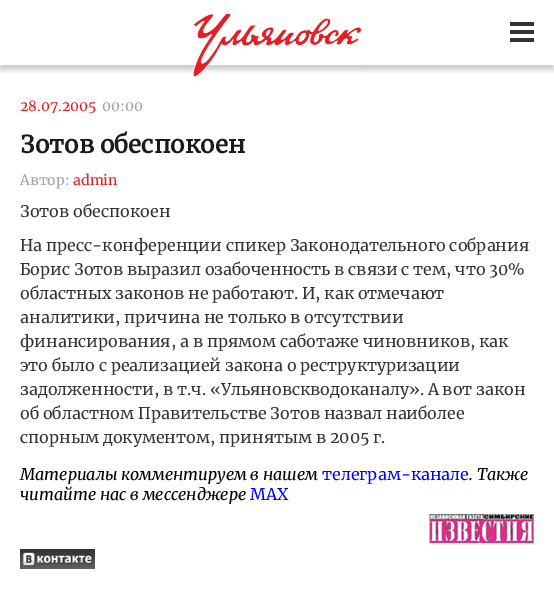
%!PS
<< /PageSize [554 598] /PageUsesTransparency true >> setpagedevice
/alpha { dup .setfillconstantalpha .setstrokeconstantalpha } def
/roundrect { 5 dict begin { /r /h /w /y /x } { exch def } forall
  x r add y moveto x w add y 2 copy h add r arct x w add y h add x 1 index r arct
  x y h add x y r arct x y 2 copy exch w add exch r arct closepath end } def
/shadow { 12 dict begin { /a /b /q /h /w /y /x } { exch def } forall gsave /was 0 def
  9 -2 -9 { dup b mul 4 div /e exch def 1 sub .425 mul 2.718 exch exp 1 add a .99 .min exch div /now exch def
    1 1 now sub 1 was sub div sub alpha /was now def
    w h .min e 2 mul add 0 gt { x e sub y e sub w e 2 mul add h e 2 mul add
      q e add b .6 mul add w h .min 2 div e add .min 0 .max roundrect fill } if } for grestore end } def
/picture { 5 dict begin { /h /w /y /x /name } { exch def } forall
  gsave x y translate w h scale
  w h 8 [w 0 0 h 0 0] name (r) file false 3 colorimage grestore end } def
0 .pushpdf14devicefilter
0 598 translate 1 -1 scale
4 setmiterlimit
1 setgray
0 0 554 598 rectfill
gsave
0 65 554 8 rectclip
0 setgray
0 5 554 65 0 2.5 0.2 shadow
grestore
(img1.rgb) 193 13 169 64 picture
0.2 setgray
510 22 24 4 rectfill
510 30 24 4 rectfill
510 38 24 4 rectfill
/Merriweather-Regular [14 0 0 -14 0 0] selectfont
0.89 0.118 0.141 setrgbcolor
20 111 moveto (28.07.2005) show
0.631 setgray
102 111 moveto (00:00) show
/Merriweather-Bold [24 0 0 -24 0 0] selectfont
0.102 setgray
20 153 moveto (Зотов обеспокоен) show
/Merriweather-Regular [14 0 0 -14 0 0] selectfont
0.631 setgray
20 185 moveto (Автор:) show
0.89 0.118 0.141 setrgbcolor
73 185 moveto (admin) show
/Merriweather-Regular [16 0 0 -16 0 0] selectfont
0.2 setgray
20 217 moveto (Зотов обеспокоен) show
20 251 moveto (На пресс-конференции спикер Законодательного собрания) show
20 275 moveto (Борис Зотов выразил озабоченность в связи с тем, что 30%) show
20 299 moveto (областных законов не работают. И, как отмечают) show
20 323 moveto (аналитики, причина не только в отсутствии) show
20 347 moveto (финансирования, а в прямом саботаже чиновников, как) show
20 371 moveto (это было с реализацией закона о реструктуризации) show
20 395 moveto (задолженности, в т.ч. «Ульяновскводоканалу». А вот закон) show
20 419 moveto (об областном Правительстве Зотов назвал наиболее) show
20 443 moveto (спорным документом, принятым в 2005 г.) show
/Merriweather-Italic [16 0 0 -16 0 0] selectfont
0 setgray
20 480 moveto (Материалы комментируем в нашем) show
/Merriweather-Regular [16 0 0 -16 0 0] selectfont
0 0 1 setrgbcolor
322 480 moveto (телеграм-канале) show
/Merriweather-Italic [16 0 0 -16 0 0] selectfont
0 setgray
469 480 moveto (. Также) show
20 500 moveto (читайте нас в мессенджере) show
/Merriweather-Regular [16 0 0 -16 0 0] selectfont
0 0 1 setrgbcolor
250 500 moveto (MAX) show
(img2.rgb) 429 514 105 29 picture
(img3.rgb) 20 549 75 20 picture
.poppdf14devicefilter showpage
